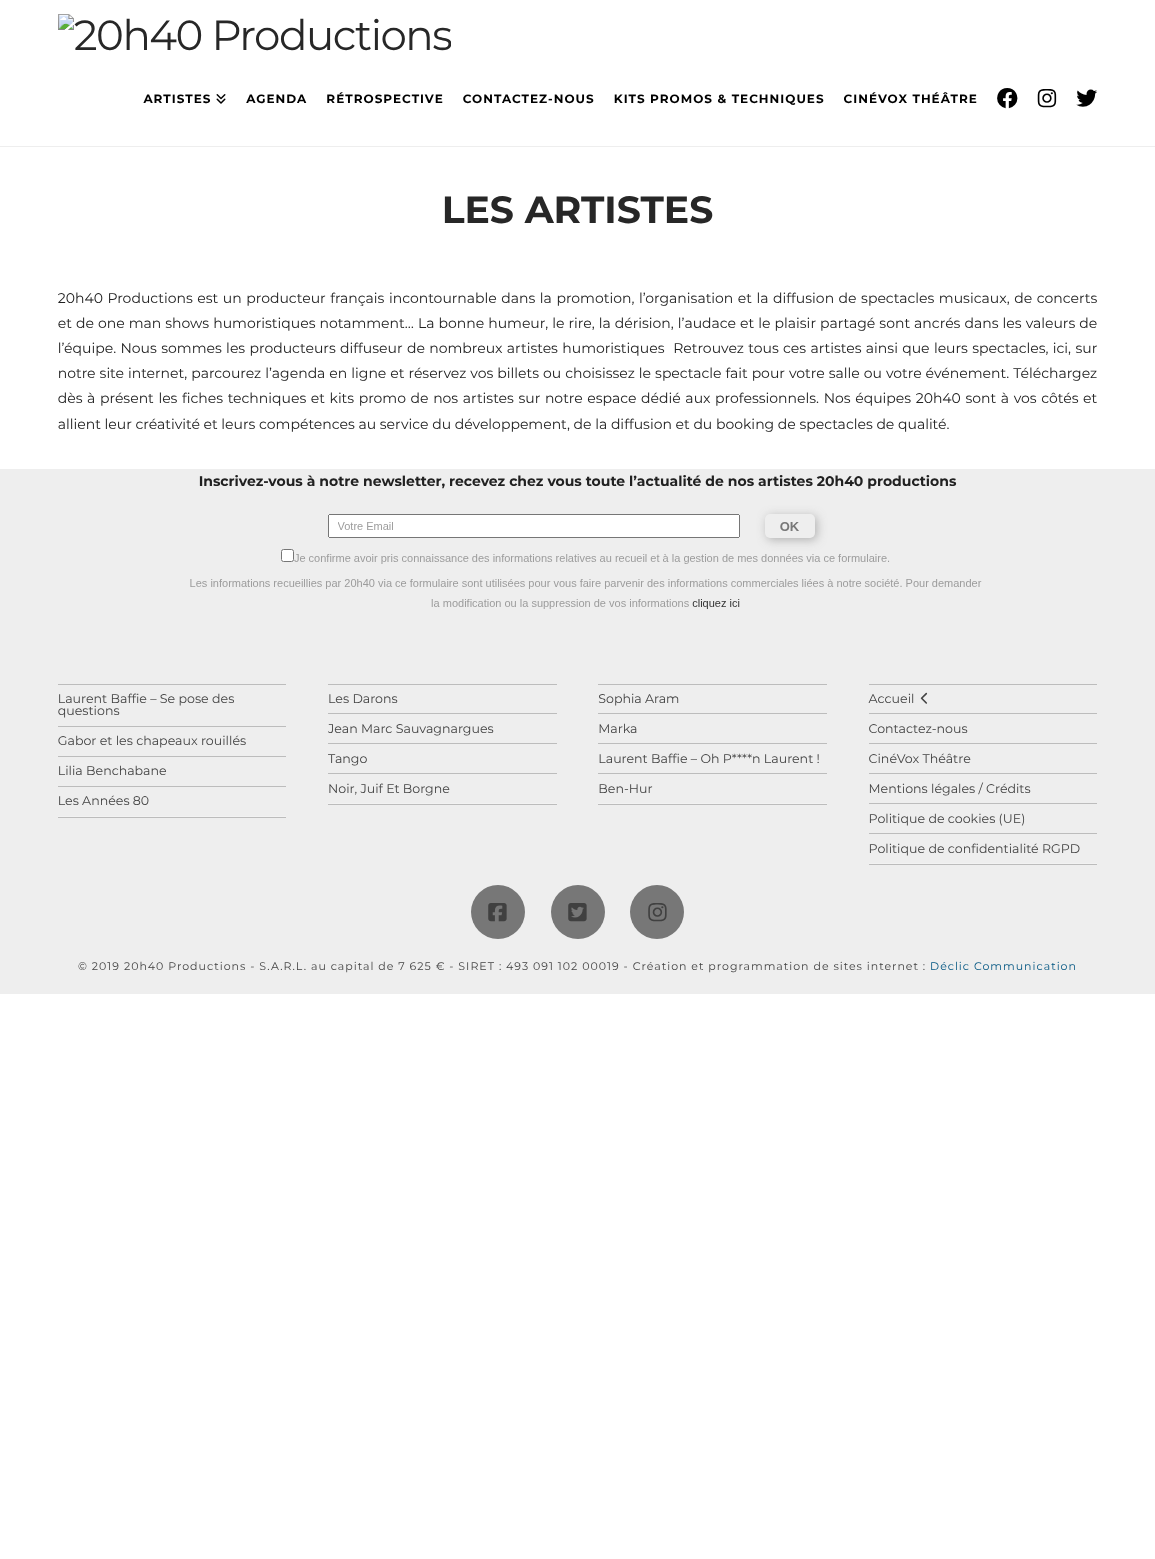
%!PS
<< /PageSize [1155 1559] >> setpagedevice
/picture { 5 dict begin { /h /w /y /x /name } { exch def } forall
  gsave x y translate w h scale
  w h 8 [w 0 0 h 0 0] name (r) file false 3 colorimage grestore end } def
0 1559 translate 1 -1 scale
4 setmiterlimit
1 setgray
0 0 1155 1559 rectfill
(img1.rgb) 0 14 1155 980 picture
showpage
